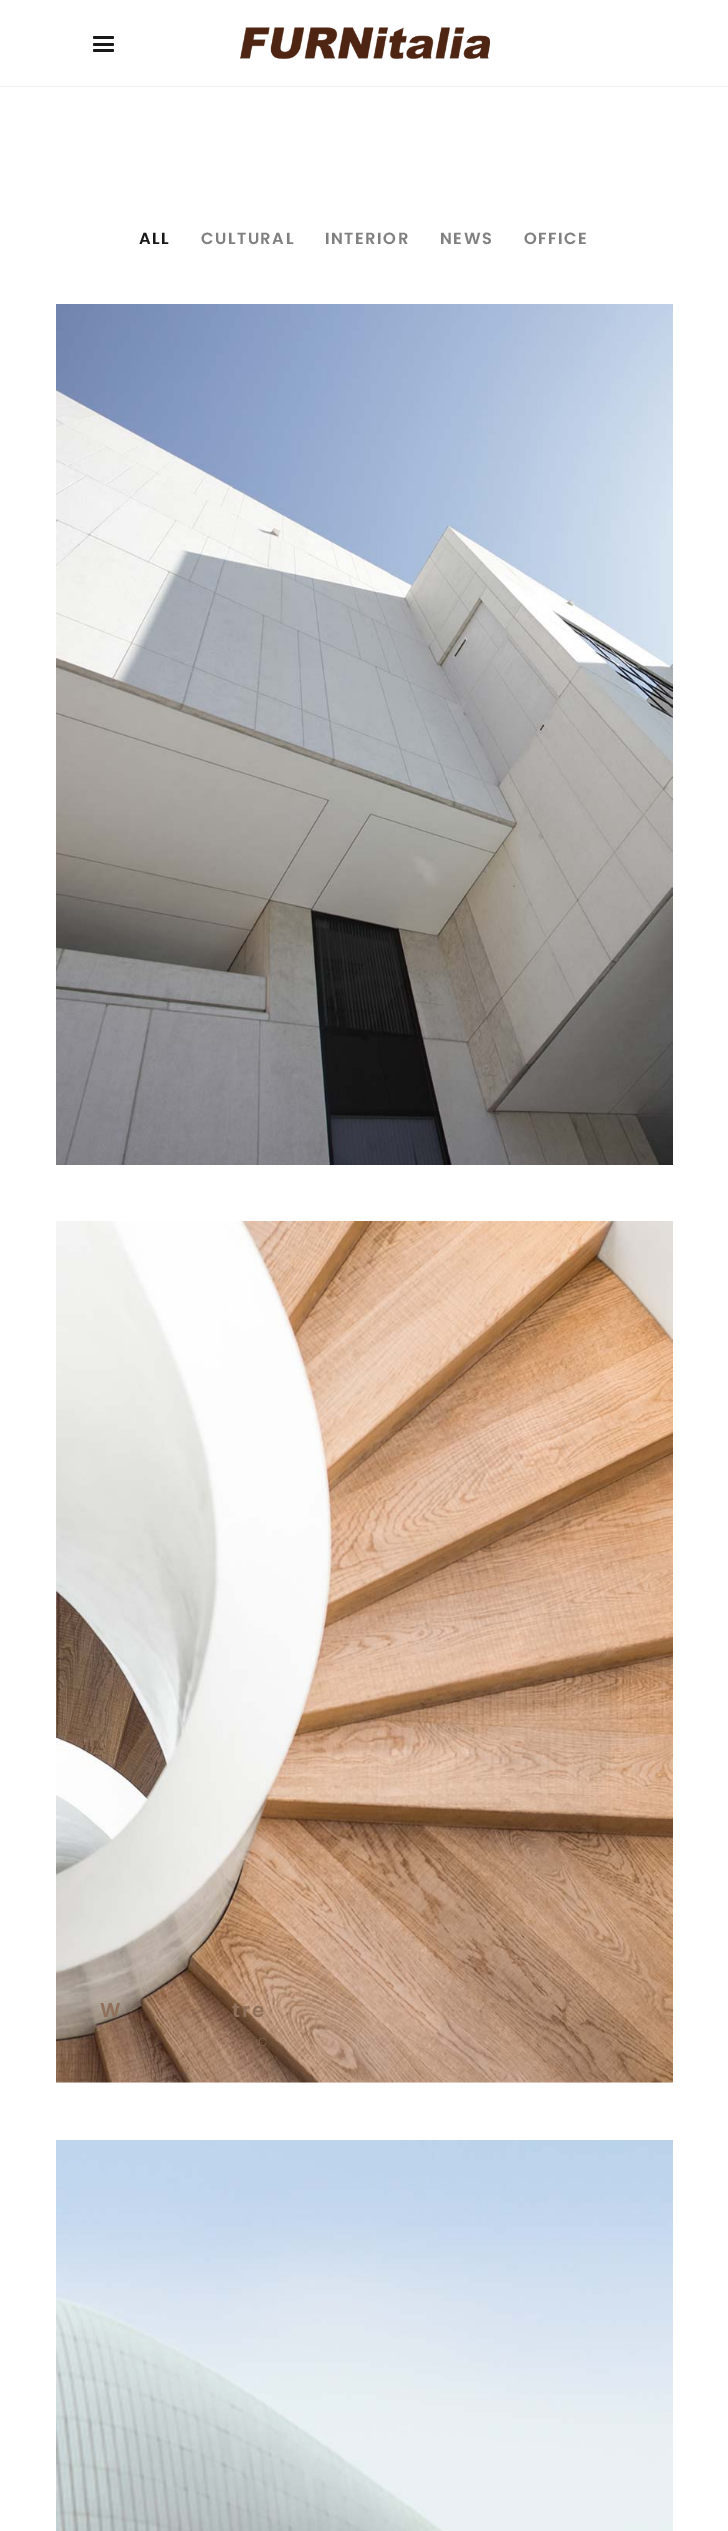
%!PS
<< /PageSize [728 2531] >> setpagedevice
/roundrect { 5 dict begin { /r /h /w /y /x } { exch def } forall
  x r add y moveto x w add y 2 copy h add r arct x w add y h add x 1 index r arct
  x y h add x y r arct x y 2 copy exch w add exch r arct closepath end } def
/picture { 5 dict begin { /h /w /y /x /name } { exch def } forall
  gsave x y translate w h scale
  w h 8 [w 0 0 h 0 0] name (r) file false 3 colorimage grestore end } def
0 2531 translate 1 -1 scale
4 setmiterlimit
1 setgray
0 0 728 2531 rectfill
0.937 setgray
0 86 728 1 rectfill
0.094 setgray
93 36 21 3 1.5 roundrect fill
93 43 21 3 1.5 roundrect fill
93 49 21 3 1.5 roundrect fill
(img1.rgb) 240 27 250 32 picture
/Poppins-SemiBold [16.25 0 0 -16.25 0 0] selectfont
139 244 moveto 1.5 0 (ALL) ashow
0.502 setgray
201 244 moveto 1.5 0 (CULTURAL) ashow
325 244 moveto 1.5 0 (INTERIOR) ashow
440 244 moveto 1.5 0 (NEWS) ashow
524 244 moveto 1.5 0 (OFFICE) ashow
(img2.rgb) 56 304 617 861 picture
(img3.rgb) 56 1221 617 862 picture
/Poppins-SemiBold [20 0 0 -20 0 0] selectfont
0.561 0.439 0.353 setrgbcolor
100 2017 moveto 2 0 (W) ashow
232 2017 moveto 2 0 (tre) ashow
/Poppins-Light [15 0 0 -15 0 0] selectfont
0.506 0.376 0.29 setrgbcolor
258 2046 moveto (c) show
(img4.rgb) 56 2140 617 391 picture
showpage
